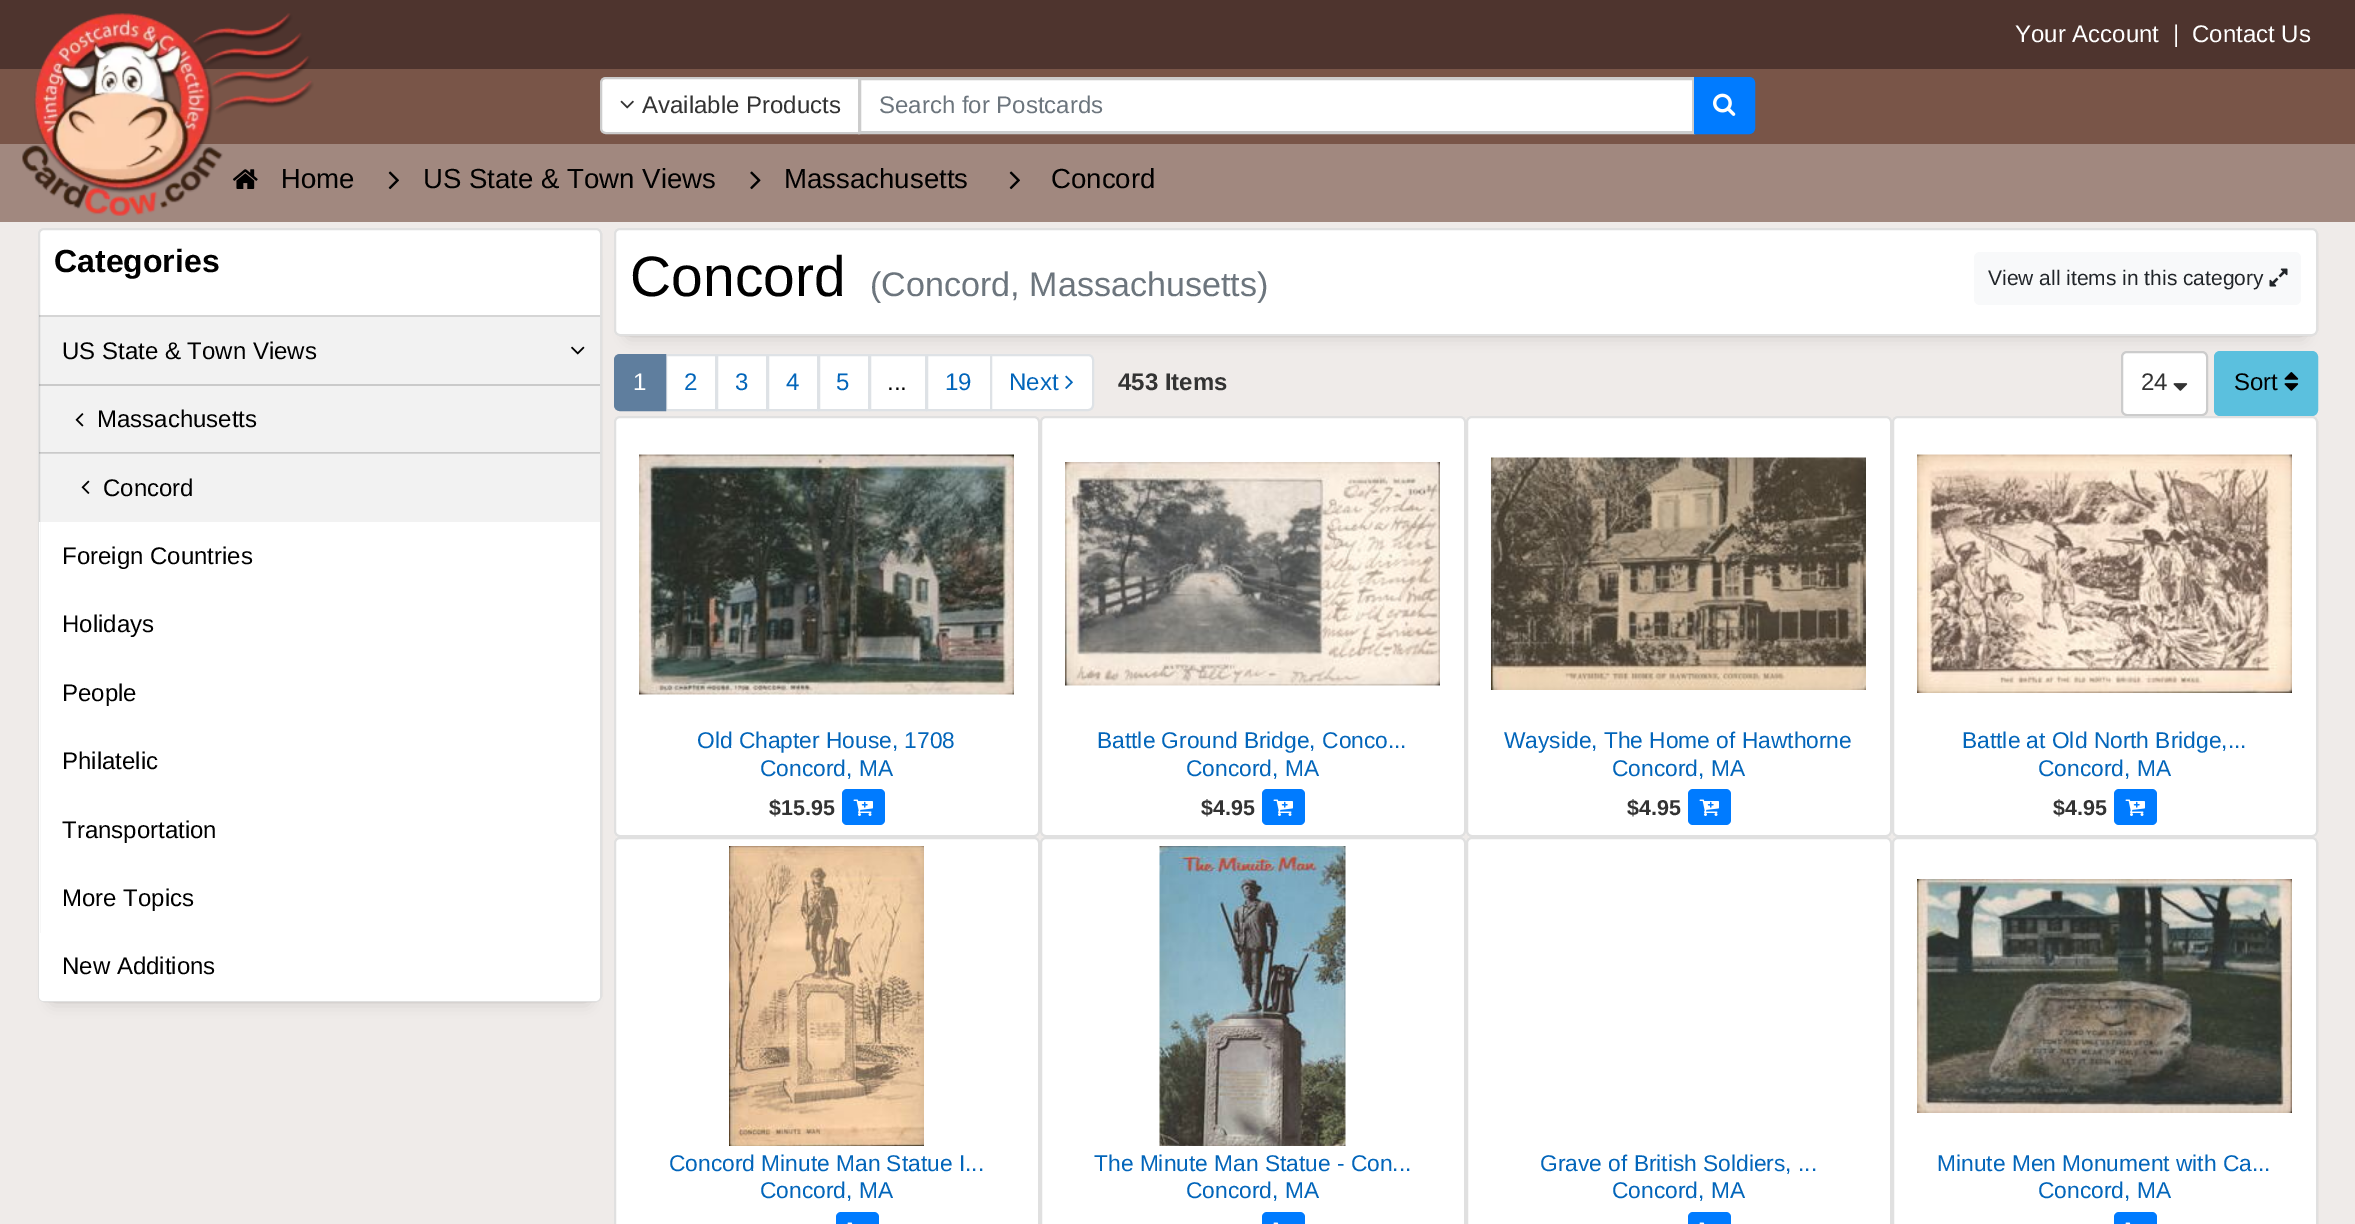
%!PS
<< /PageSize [2355 1224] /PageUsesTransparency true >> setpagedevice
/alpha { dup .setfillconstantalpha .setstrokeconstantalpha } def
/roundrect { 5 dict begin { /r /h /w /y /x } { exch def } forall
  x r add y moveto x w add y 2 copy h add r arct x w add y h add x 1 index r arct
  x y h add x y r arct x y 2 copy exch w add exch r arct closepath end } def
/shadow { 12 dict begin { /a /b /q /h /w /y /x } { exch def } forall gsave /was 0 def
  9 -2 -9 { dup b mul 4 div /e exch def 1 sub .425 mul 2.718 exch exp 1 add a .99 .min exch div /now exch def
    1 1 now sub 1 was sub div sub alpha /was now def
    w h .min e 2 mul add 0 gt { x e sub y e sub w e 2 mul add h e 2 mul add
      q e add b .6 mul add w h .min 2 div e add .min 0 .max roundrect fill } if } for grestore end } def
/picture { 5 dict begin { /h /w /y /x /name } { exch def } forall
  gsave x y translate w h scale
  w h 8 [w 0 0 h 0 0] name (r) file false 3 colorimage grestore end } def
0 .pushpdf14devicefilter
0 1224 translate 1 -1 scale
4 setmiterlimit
0.631 0.533 0.498 setrgbcolor
0 0 2355 1224 rectfill
0.306 0.204 0.18 setrgbcolor
0 0 2355 69 rectfill
/LiberationSans-Regular [24 0 0 -24 0 0] selectfont
1 setgray
2015 42 moveto (Your Account) show
2173 42 moveto (|) show
2192 42 moveto (Contact Us) show
0.475 0.333 0.282 setrgbcolor
0 69 2355 75 rectfill
(img4.rgb) 232 169 26 20 picture
/LiberationSans-Regular [27.6 0 0 -27.6 0 0] selectfont
0 setgray
281 188 moveto (Home) show
(img1.rgb) 22 13 292 203 picture
1 setgray
newpath 859.5 78.5 moveto 1693.5 78.5 lineto 1693.5 132.5 lineto 859.5 132.5 lineto closepath gsave fill grestore
0.8 setgray
3 setlinewidth
stroke
1 setgray
newpath 606 78 moveto 859 78 lineto 859 133 lineto 606 133 lineto 603 133 601 131 601 128 curveto 601 83 lineto 601 80 603 78 606 78 curveto closepath gsave fill grestore
0.8 setgray
2 setlinewidth
stroke
(img2.rgb) 620 100 14 9 picture
/LiberationSans-Regular [24 0 0 -24 0 0] selectfont
0.2 setgray
642 113 moveto (Available Products) show
0.424 0.459 0.49 setrgbcolor
879 113 moveto (Search for Postcards) show
0 0.482 1 setrgbcolor
newpath 1695 78 moveto 1749 78 lineto 1752 78 1754 80 1754 83 curveto 1754 128 lineto 1754 131 1752 133 1749 133 curveto 1695 133 lineto closepath gsave fill grestore
stroke
(img3.rgb) 1713 93 23 23 picture
(img5.rgb) 388 171 11 19 picture
/LiberationSans-Regular [27.6 0 0 -27.6 0 0] selectfont
0 setgray
423 188 moveto (US State & Town Views) show
(img6.rgb) 750 171 11 19 picture
784 188 moveto (Massachusetts) show
(img5.rgb) 1009 171 11 19 picture
1051 188 moveto (Concord) show
0.937 0.922 0.914 setrgbcolor
0 222 2355 1002 rectfill
0 setgray
53 258 534 744 0 7.5 0.15 shadow
1 setgray
38 228 564 774 6 roundrect fill
0.12 alpha
0 setgray
39 229 562 772 5 roundrect stroke
/LiberationSans-Bold [32 0 0 -32 0 0] selectfont
1 alpha
54 272 moveto (Categories) show
0.05 alpha
39 315 561 71 rectfill
0.12 alpha
39 315 561 2 rectfill
/LiberationSans-Regular [24 0 0 -24 0 0] selectfont
1 alpha
62 359 moveto (US State & Town Views) show
(img7.rgb) 571 346 14 9 picture
0.05 alpha
39 384 561 69 rectfill
0.12 alpha
39 384 561 2 rectfill
1 alpha
(img8.rgb) 75 413 9 14 picture
97 427 moveto (Massachusetts) show
0.05 alpha
39 452 561 70 rectfill
0.12 alpha
39 452 561 2 rectfill
1 alpha
(img9.rgb) 81 480 9 14 picture
103 496 moveto (Concord) show
1 setgray
39 522 1 411 rectfill
0 setgray
62 564 moveto (Foreign Countries) show
62 632 moveto (Holidays) show
62 701 moveto (People) show
62 769 moveto (Philatelic) show
62 838 moveto (Transportation) show
62 906 moveto (More Topics) show
1 setgray
newpath 39 933 moveto 600 933 lineto 600 996 lineto 600 999 598 1001 595 1001 curveto 44 1001 lineto 41 1001 39 999 39 996 curveto closepath fill
0 setgray
62 974 moveto (New Additions) show
629 258 1674 78 0 7.5 0.15 shadow
1 setgray
614 228 1704 108 6 roundrect fill
0.12 alpha
0 setgray
615 229 1702 106 5 roundrect stroke
/LiberationSans-Regular [57 0 0 -57 0 0] selectfont
1 alpha
630 296 moveto (Concord) show
/LiberationSans-Regular [34.1 0 0 -34.1 0 0] selectfont
0.424 0.459 0.49 setrgbcolor
870 296 moveto (\(Concord, Massachusetts\)) show
0.973 0.976 0.98 setrgbcolor
1974 252 327 53 6 roundrect fill
/LiberationSans-Regular [21 0 0 -21 0 0] selectfont
0.129 0.145 0.161 setrgbcolor
1988 285 moveto (View all items in this category) show
(img10.rgb) 2269 268 19 19 picture
1 setgray
newpath 666 355 moveto 716 355 lineto 716 410 lineto 666 410 lineto closepath gsave fill grestore
0.871 0.886 0.902 setrgbcolor
stroke
0.373 0.494 0.62 setrgbcolor
newpath 620 355 moveto 665 355 lineto 665 410 lineto 620 410 lineto 617 410 615 408 615 405 curveto 615 360 lineto 615 357 617 355 620 355 curveto closepath gsave fill grestore
stroke
/LiberationSans-Regular [24 0 0 -24 0 0] selectfont
1 setgray
633 390 moveto (1) show
0.008 0.396 0.729 setrgbcolor
684 390 moveto (2) show
1 setgray
newpath 717 355 moveto 767 355 lineto 767 410 lineto 717 410 lineto closepath gsave fill grestore
0.871 0.886 0.902 setrgbcolor
stroke
0.008 0.396 0.729 setrgbcolor
735 390 moveto (3) show
1 setgray
newpath 768 355 moveto 818 355 lineto 818 410 lineto 768 410 lineto closepath gsave fill grestore
0.871 0.886 0.902 setrgbcolor
stroke
0.008 0.396 0.729 setrgbcolor
786 390 moveto (4) show
1 setgray
newpath 819 355 moveto 869 355 lineto 869 410 lineto 819 410 lineto closepath gsave fill grestore
0.871 0.886 0.902 setrgbcolor
stroke
0.008 0.396 0.729 setrgbcolor
836 390 moveto (5) show
1 setgray
newpath 870 355 moveto 926 355 lineto 926 410 lineto 870 410 lineto closepath gsave fill grestore
0.871 0.886 0.902 setrgbcolor
stroke
0 setgray
887 390 moveto (...) show
1 setgray
newpath 927 355 moveto 991 355 lineto 991 410 lineto 927 410 lineto closepath gsave fill grestore
0.871 0.886 0.902 setrgbcolor
stroke
0.008 0.396 0.729 setrgbcolor
945 390 moveto (19) show
1 setgray
newpath 991 355 moveto 1088 355 lineto 1091 355 1093 357 1093 360 curveto 1093 405 lineto 1093 408 1091 410 1088 410 curveto 991 410 lineto closepath gsave fill grestore
0.871 0.886 0.902 setrgbcolor
stroke
0.008 0.396 0.729 setrgbcolor
1009 390 moveto (Next) show
(img11.rgb) 1065 375 8 14 picture
/LiberationSans-Bold [24 0 0 -24 0 0] selectfont
0.2 setgray
1118 390 moveto (453 Items) show
1 setgray
2122 352 85 63 5 roundrect gsave fill grestore
0.8 setgray
stroke
/LiberationSans-Regular [24 0 0 -24 0 0] selectfont
0.2 setgray
2141 390 moveto (24) show
(img12.rgb) 2173 383 15 8 picture
0.357 0.753 0.871 setrgbcolor
2215 352 102 63 5 roundrect gsave fill grestore
stroke
0 setgray
2234 390 moveto (Sort) show
(img13.rgb) 2284 372 15 19 picture
1 setgray
614 416 426 421 6 roundrect fill
0.12 alpha
0 setgray
615 417 424 419 5 roundrect stroke
1 alpha
(img14.rgb) 639 454 375 241 picture
/LiberationSans-Regular [22.75 0 0 -22.75 0 0] selectfont
0.008 0.396 0.729 setrgbcolor
697 748 moveto (Old Chapter House, 1708) show
760 776 moveto (Concord, MA) show
/LiberationSans-Bold [21.5 0 0 -21.5 0 0] selectfont
0.2 setgray
769 815 moveto ($15.95) show
0 0.482 1 setrgbcolor
842 789 43 36 5 roundrect fill
(img15.rgb) 853 799 20 17 picture
1 setgray
1040 416 426 421 6 roundrect fill
0.12 alpha
0 setgray
1041 417 424 419 5 roundrect stroke
1 alpha
(img16.rgb) 1065 462 375 224 picture
/LiberationSans-Regular [22.75 0 0 -22.75 0 0] selectfont
0.008 0.396 0.729 setrgbcolor
1097 748 moveto (Battle Ground Bridge, Conco...) show
1186 776 moveto (Concord, MA) show
/LiberationSans-Bold [21.5 0 0 -21.5 0 0] selectfont
0.2 setgray
1201 815 moveto ($4.95) show
0 0.482 1 setrgbcolor
1262 789 43 36 5 roundrect fill
(img15.rgb) 1273 799 20 17 picture
1 setgray
1466 416 426 421 6 roundrect fill
0.12 alpha
0 setgray
1467 417 424 419 5 roundrect stroke
1 alpha
(img17.rgb) 1491 457 375 233 picture
/LiberationSans-Regular [22.75 0 0 -22.75 0 0] selectfont
0.008 0.396 0.729 setrgbcolor
1504 748 moveto (Wayside, The Home of Hawthorne) show
1612 776 moveto (Concord, MA) show
/LiberationSans-Bold [21.5 0 0 -21.5 0 0] selectfont
0.2 setgray
1627 815 moveto ($4.95) show
0 0.482 1 setrgbcolor
1688 789 43 36 5 roundrect fill
(img15.rgb) 1699 799 20 17 picture
1 setgray
1892 416 426 421 6 roundrect fill
0.12 alpha
0 setgray
1893 417 424 419 5 roundrect stroke
1 alpha
(img18.rgb) 1917 454 375 239 picture
/LiberationSans-Regular [22.75 0 0 -22.75 0 0] selectfont
0.008 0.396 0.729 setrgbcolor
1962 748 moveto (Battle at Old North Bridge,...) show
2038 776 moveto (Concord, MA) show
/LiberationSans-Bold [21.5 0 0 -21.5 0 0] selectfont
0.2 setgray
2053 815 moveto ($4.95) show
0 0.482 1 setrgbcolor
2114 789 43 36 5 roundrect fill
(img15.rgb) 2125 799 20 17 picture
1 setgray
614 837 426 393 6 roundrect fill
0.12 alpha
0 setgray
615 838 424 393 5 roundrect stroke
1 alpha
(img19.rgb) 729 846 195 300 picture
/LiberationSans-Regular [22.75 0 0 -22.75 0 0] selectfont
0.008 0.396 0.729 setrgbcolor
669 1171 moveto (Concord Minute Man Statue I...) show
760 1198 moveto (Concord, MA) show
0 0.482 1 setrgbcolor
836 1212 43 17 5 roundrect fill
(img20.rgb) 847 1222 6 2 picture
1 setgray
1040 837 426 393 6 roundrect fill
0.12 alpha
0 setgray
1041 838 424 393 5 roundrect stroke
1 alpha
(img21.rgb) 1159 846 187 300 picture
0.008 0.396 0.729 setrgbcolor
1094 1171 moveto (The Minute Man Statue - Con...) show
1186 1198 moveto (Concord, MA) show
0 0.482 1 setrgbcolor
1262 1212 43 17 5 roundrect fill
(img20.rgb) 1273 1222 6 2 picture
1 setgray
1466 837 426 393 6 roundrect fill
0.12 alpha
0 setgray
1467 838 424 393 5 roundrect stroke
1 alpha
0.008 0.396 0.729 setrgbcolor
1540 1171 moveto (Grave of British Soldiers, ...) show
1612 1198 moveto (Concord, MA) show
0 0.482 1 setrgbcolor
1688 1212 43 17 5 roundrect fill
(img20.rgb) 1699 1222 6 2 picture
1 setgray
1892 837 426 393 6 roundrect fill
0.12 alpha
0 setgray
1893 838 424 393 5 roundrect stroke
1 alpha
(img22.rgb) 1917 879 375 234 picture
0.008 0.396 0.729 setrgbcolor
1937 1171 moveto (Minute Men Monument with Ca...) show
2038 1198 moveto (Concord, MA) show
0 0.482 1 setrgbcolor
2114 1212 43 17 5 roundrect fill
(img20.rgb) 2125 1222 6 2 picture
.poppdf14devicefilter showpage
